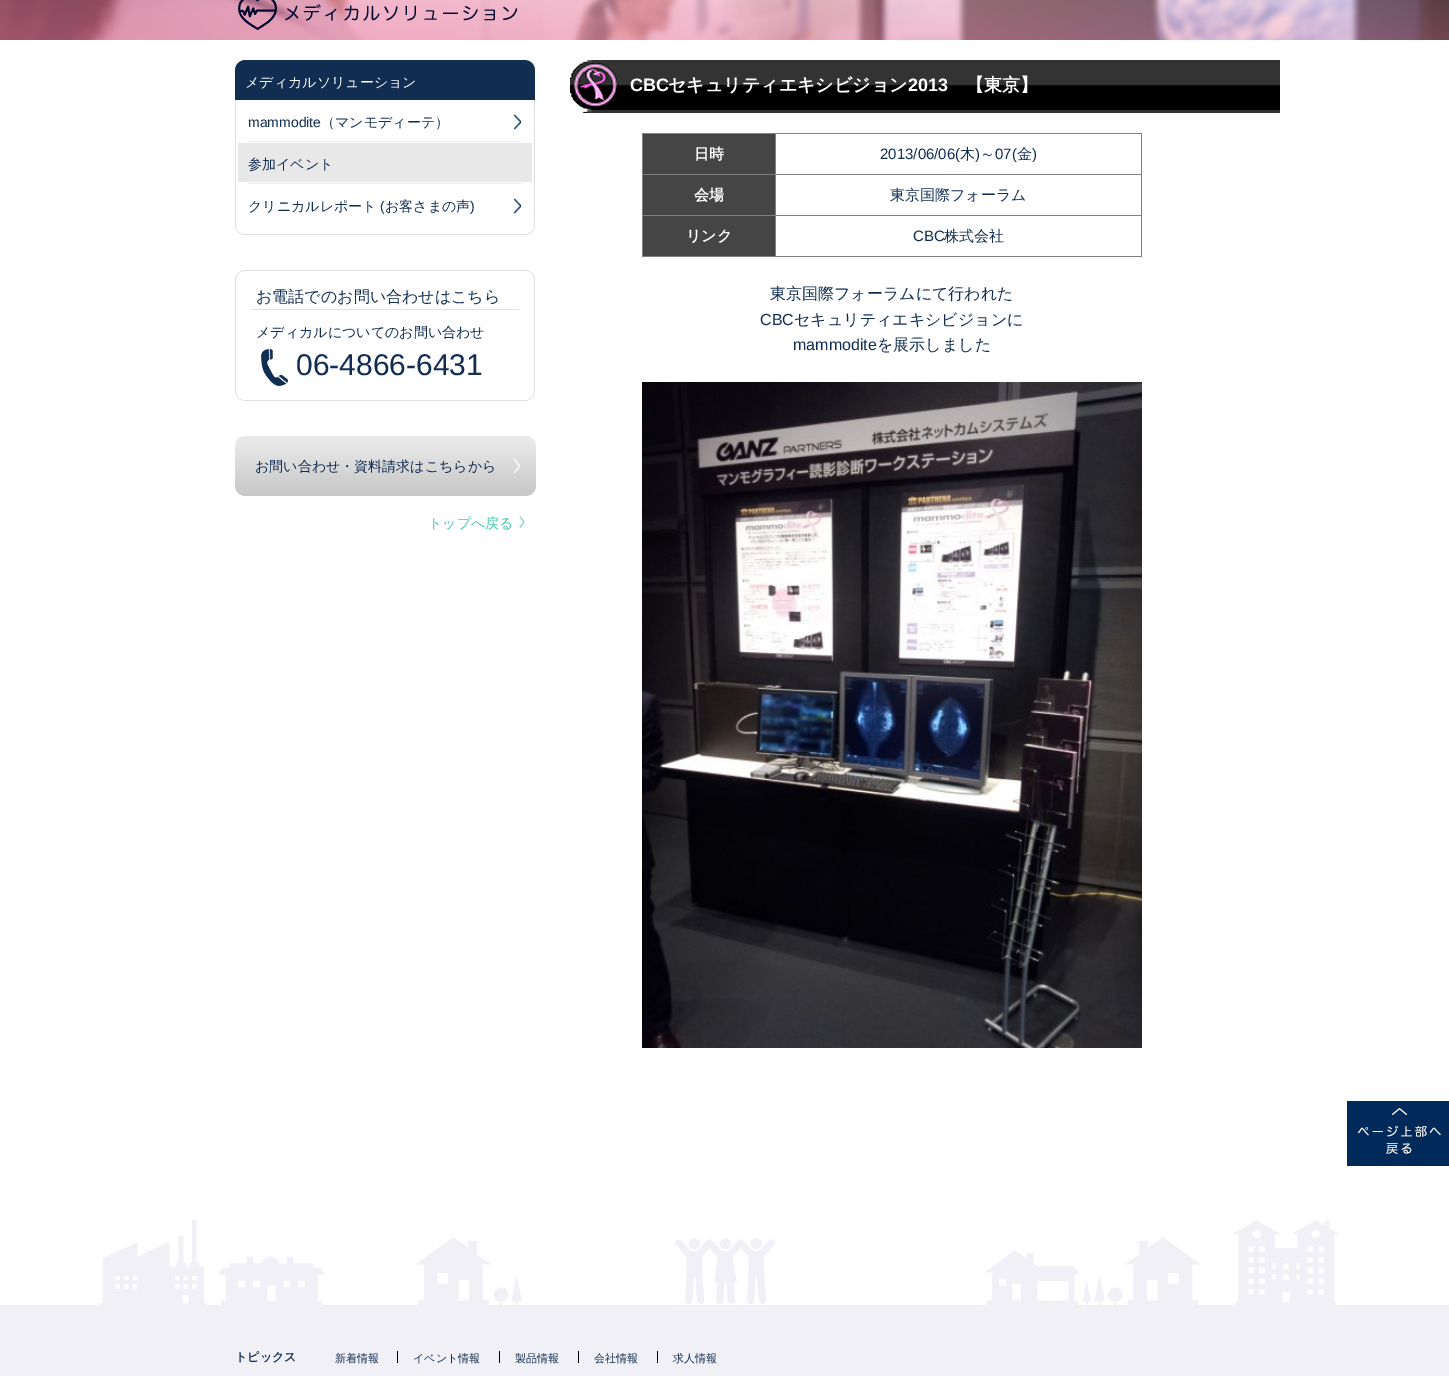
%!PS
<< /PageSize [1449 1376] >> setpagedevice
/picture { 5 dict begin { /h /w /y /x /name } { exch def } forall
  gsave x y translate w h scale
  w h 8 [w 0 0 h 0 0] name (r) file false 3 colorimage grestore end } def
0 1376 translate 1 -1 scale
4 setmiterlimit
1 setgray
0 0 1449 1376 rectfill
(img1.rgb) 0 0 1449 40 picture
(img2.rgb) 238 0 280 30 picture
(img3.rgb) 235 60 300 40 picture
/WenQuanYiZenHei-Medium [14 0 0 -14 0 0] selectfont
245 87 moveto (メディカルソリューション) show
0.875 0.871 0.898 setrgbcolor
534 100 1 125 rectfill
235 100 1 125 rectfill
/LiberationSans-Regular [14 0 0 -14 0 0] selectfont
0.067 0.176 0.322 setrgbcolor
248 127 moveto (mammodite) show
/WenQuanYiZenHei-Medium [14 0 0 -14 0 0] selectfont
321 127 moveto (（マンモディーテ）) show
(img4.rgb) 514 114 7 16 picture
0.933 setgray
248 141 274 1 rectfill
0.91 setgray
238 143 294 39 rectfill
0.067 0.176 0.322 setrgbcolor
248 169 moveto (参加イベント) show
0.933 setgray
248 183 274 1 rectfill
0.067 0.176 0.322 setrgbcolor
248 211 moveto (クリニカルレポート) show
/LiberationSans-Regular [14 0 0 -14 0 0] selectfont
380 211 moveto (\() show
/WenQuanYiZenHei-Medium [14 0 0 -14 0 0] selectfont
385 211 moveto (お客さまの声) show
/LiberationSans-Regular [14 0 0 -14 0 0] selectfont
470 211 moveto (\)) show
(img4.rgb) 514 198 7 16 picture
(img5.rgb) 235 225 300 10 picture
(img6.rgb) 235 270 300 10 picture
0.875 0.871 0.898 setrgbcolor
534 280 1 111 rectfill
235 280 1 111 rectfill
/WenQuanYiZenHei-Medium [16 0 0 -16 0 0] selectfont
0.067 0.176 0.322 setrgbcolor
256 302 moveto (お電話でのお問い合わせはこちら) show
0.875 0.871 0.898 setrgbcolor
251 309 268 1 rectfill
/WenQuanYiZenHei-Medium [14 0 0 -14 0 0] selectfont
0.067 0.176 0.322 setrgbcolor
256 337 moveto (メディカルについてのお問い合わせ) show
(img7.rgb) 261 349 27 37 picture
/LiberationSans-Regular [30 0 0 -30 0 0] selectfont
296 375 moveto (06-4866-6431) show
(img5.rgb) 235 391 300 10 picture
(img8.rgb) 235 436 301 60 picture
/WenQuanYiZenHei-Medium [14 0 0 -14 0 0] selectfont
255 471 moveto (お問い合わせ・資料請求はこちらから) show
0.267 0.773 0.682 setrgbcolor
428 528 moveto (トップへ戻る) show
(img9.rgb) 519 516 6 12 picture
(img10.rgb) 570 60 710 53 picture
/LiberationSans-Bold [18 0 0 -18 0 0] selectfont
1 setgray
630 91 moveto (CBC) show
/WenQuanYiZenHei-Bold [18 0 0 -18 0 0] selectfont
668 91 moveto (セキュリティエキシビジョン) show
/LiberationSans-Bold [18 0 0 -18 0 0] selectfont
908 91 moveto (2013) show
/WenQuanYiZenHei-Bold [18 0 0 -18 0 0] selectfont
966 91 moveto (【東京】) show
0.271 setgray
643 134 132 40 rectfill
0.502 setgray
775 133 367 1 rectfill
775 174 367 1 rectfill
775 215 367 1 rectfill
1141 215 1 42 rectfill
775 256 367 1 rectfill
775 215 1 42 rectfill
642 215 134 1 rectfill
775 174 1 42 rectfill
642 174 134 1 rectfill
775 133 1 42 rectfill
642 133 134 1 rectfill
642 256 134 1 rectfill
642 215 1 42 rectfill
642 174 1 42 rectfill
642 133 1 42 rectfill
/WenQuanYiZenHei-Bold [15 0 0 -15 0 0] selectfont
1 setgray
694 159 moveto (日時) show
0.502 setgray
1141 174 1 42 rectfill
1141 133 1 42 rectfill
/LiberationSans-Regular [15 0 0 -15 0 0] selectfont
0.067 0.176 0.322 setrgbcolor
880 159 moveto (2013/06/06\() show
/WenQuanYiZenHei-Medium [15 0 0 -15 0 0] selectfont
960 159 moveto (木) show
/LiberationSans-Regular [15 0 0 -15 0 0] selectfont
975 159 moveto (\)) show
/WenQuanYiZenHei-Medium [15 0 0 -15 0 0] selectfont
980 159 moveto (～) show
/LiberationSans-Regular [15 0 0 -15 0 0] selectfont
995 159 moveto (07\() show
/WenQuanYiZenHei-Medium [15 0 0 -15 0 0] selectfont
1017 159 moveto (金) show
/LiberationSans-Regular [15 0 0 -15 0 0] selectfont
1032 159 moveto (\)) show
0.271 setgray
643 175 132 40 rectfill
/WenQuanYiZenHei-Bold [15 0 0 -15 0 0] selectfont
1 setgray
694 200 moveto (会場) show
/WenQuanYiZenHei-Medium [15 0 0 -15 0 0] selectfont
0.067 0.176 0.322 setrgbcolor
890 200 moveto (東京国際フォーラム) show
0.271 setgray
643 216 132 40 rectfill
/WenQuanYiZenHei-Bold [15 0 0 -15 0 0] selectfont
1 setgray
686 241 moveto (リンク) show
/LiberationSans-Regular [15 0 0 -15 0 0] selectfont
0.067 0.176 0.322 setrgbcolor
913 241 moveto (CBC) show
/WenQuanYiZenHei-Medium [15 0 0 -15 0 0] selectfont
944 241 moveto (株式会社) show
/WenQuanYiZenHei-Medium [16 0 0 -16 0 0] selectfont
770 299 moveto (東京国際フォーラムにて行われた) show
/LiberationSans-Regular [16 0 0 -16 0 0] selectfont
760 325 moveto (CBC) show
/WenQuanYiZenHei-Medium [16 0 0 -16 0 0] selectfont
794 325 moveto (セキュリティエキシビジョンに) show
/LiberationSans-Regular [16 0 0 -16 0 0] selectfont
793 350 moveto (mammodite) show
/WenQuanYiZenHei-Medium [16 0 0 -16 0 0] selectfont
877 350 moveto (を展示しました) show
(img11.rgb) 642 382 500 666 picture
(img12.rgb) 100 1220 1239 85 picture
(img13.rgb) 675 1238 100 66 picture
0.945 0.941 0.965 setrgbcolor
0 1305 1449 71 rectfill
(img14.rgb) 1347 1101 102 65 picture
/WenQuanYiZenHei-Bold [12 0 0 -12 0 0] selectfont
0.067 0.176 0.322 setrgbcolor
235 1361 moveto (トピックス) show
/WenQuanYiZenHei-Medium [11 0 0 -11 0 0] selectfont
335 1362 moveto (新着情報) show
0 setgray
397 1351 1 12 rectfill
0.067 0.176 0.322 setrgbcolor
413 1362 moveto (イベント情報) show
0 setgray
499 1351 1 12 rectfill
0.067 0.176 0.322 setrgbcolor
515 1362 moveto (製品情報) show
0 setgray
578 1351 1 12 rectfill
0.067 0.176 0.322 setrgbcolor
594 1362 moveto (会社情報) show
0 setgray
657 1351 1 12 rectfill
0.067 0.176 0.322 setrgbcolor
673 1362 moveto (求人情報) show
showpage
